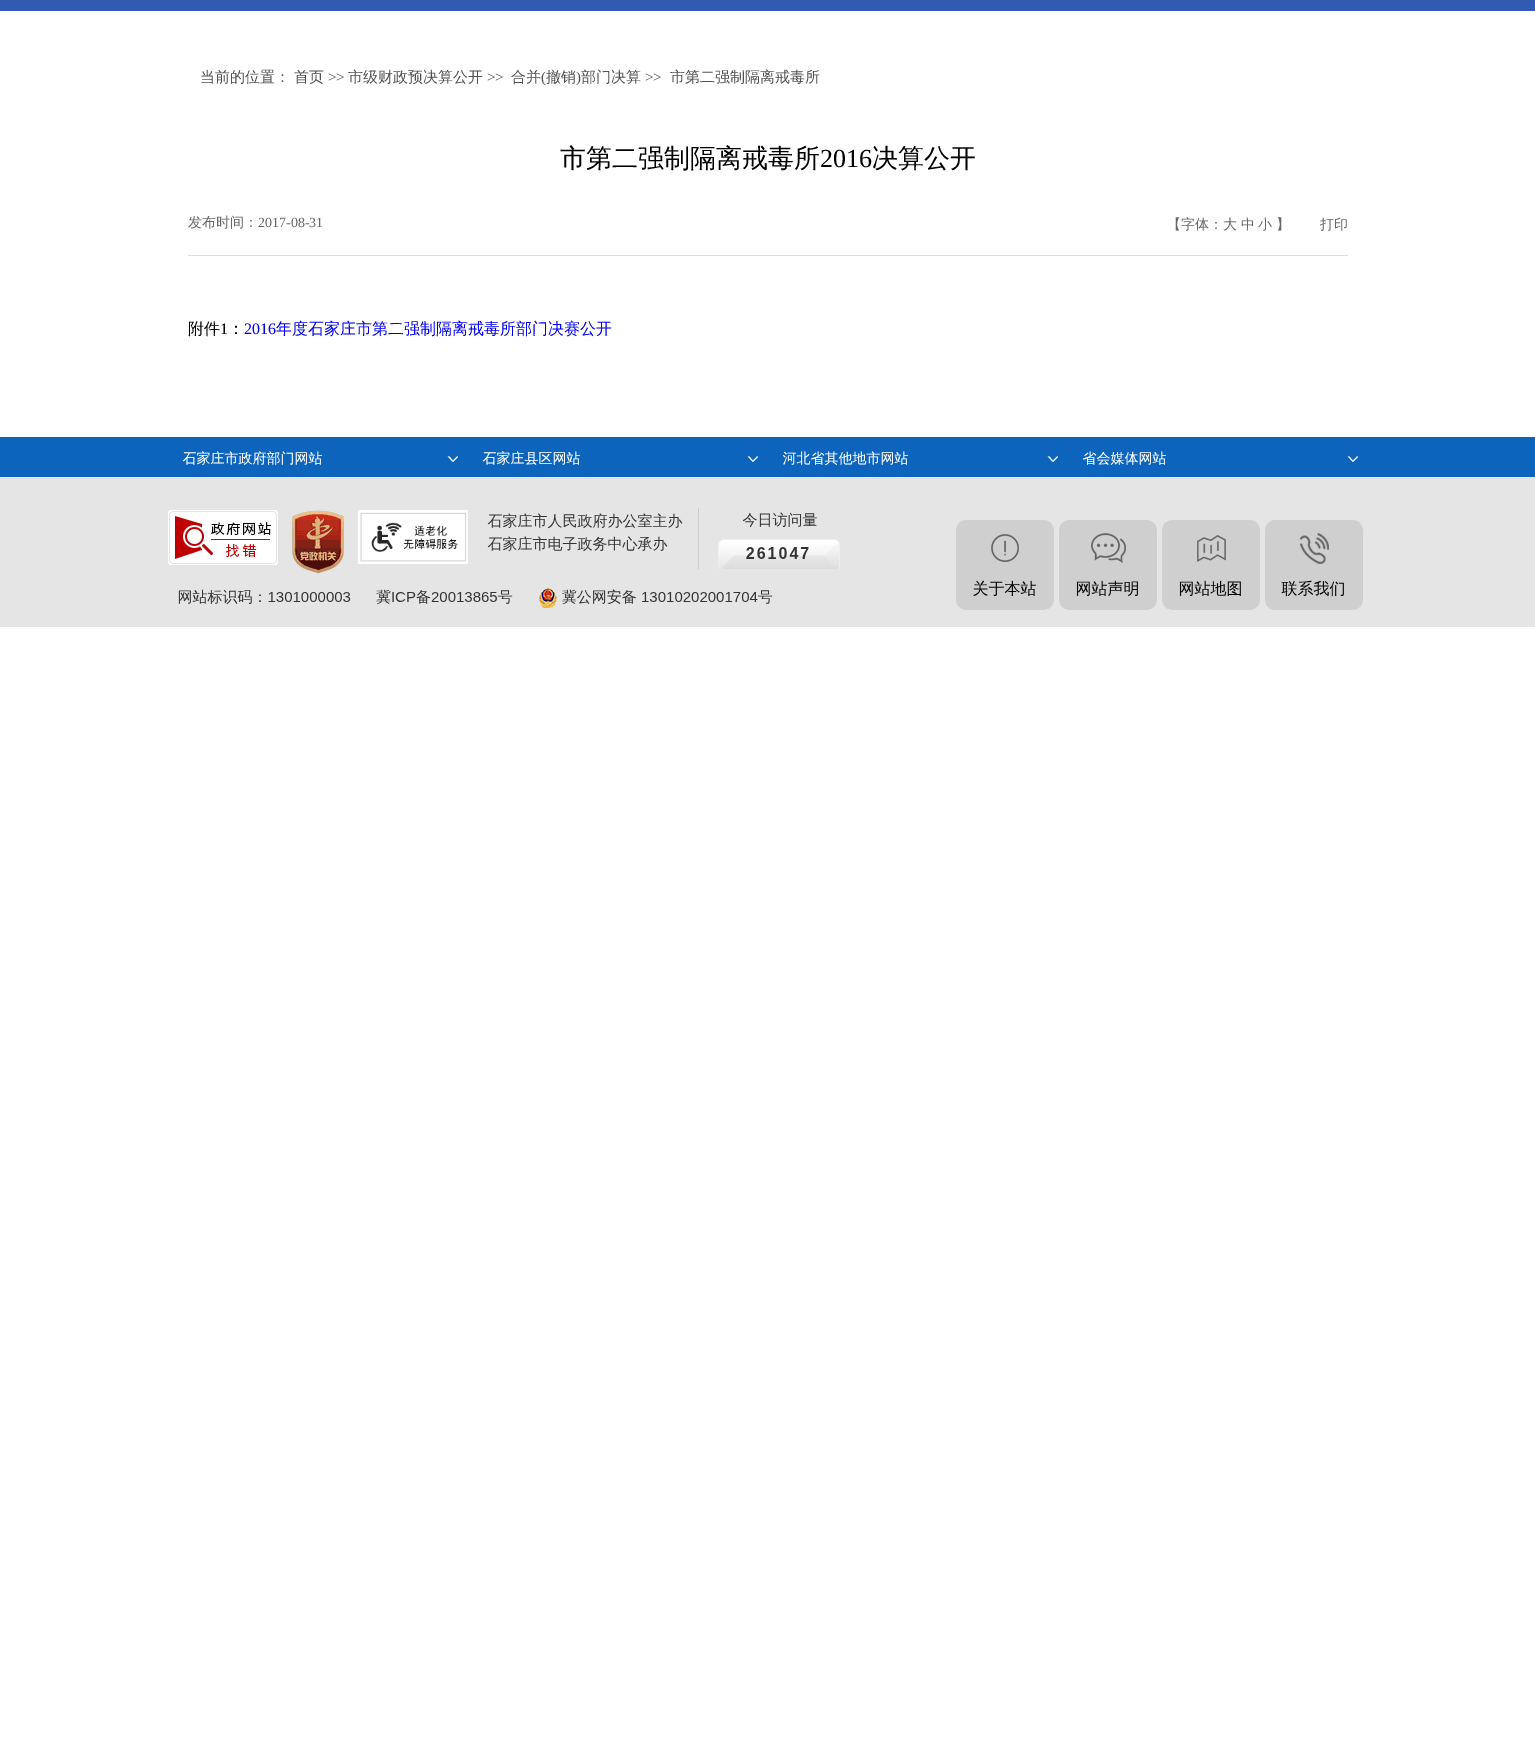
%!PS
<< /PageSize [1535 1737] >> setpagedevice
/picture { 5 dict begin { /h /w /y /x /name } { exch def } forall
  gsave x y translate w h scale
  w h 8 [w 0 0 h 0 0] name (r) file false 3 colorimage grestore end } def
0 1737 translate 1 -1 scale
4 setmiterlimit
1 setgray
0 0 1535 1737 rectfill
0.196 0.353 0.698 setrgbcolor
0 0 1535 11 rectfill
/WenQuanYiZenHei-Medium [15 0 0 -15 0 0] selectfont
0.314 setgray
200 82 moveto (当前的位置：) show
294 82 moveto (首页) show
/LiberationSerif-Regular [15 0 0 -15 0 0] selectfont
328 82 moveto (>>) show
/WenQuanYiZenHei-Medium [15 0 0 -15 0 0] selectfont
348 82 moveto (市级财政预决算公开) show
/LiberationSerif-Regular [15 0 0 -15 0 0] selectfont
487 82 moveto (>>) show
/WenQuanYiZenHei-Medium [15 0 0 -15 0 0] selectfont
511 82 moveto (合并) show
/LiberationSerif-Regular [15 0 0 -15 0 0] selectfont
541 82 moveto (\() show
/WenQuanYiZenHei-Medium [15 0 0 -15 0 0] selectfont
546 82 moveto (撤销) show
/LiberationSerif-Regular [15 0 0 -15 0 0] selectfont
576 82 moveto (\)) show
/WenQuanYiZenHei-Medium [15 0 0 -15 0 0] selectfont
581 82 moveto (部门决算) show
/LiberationSerif-Regular [15 0 0 -15 0 0] selectfont
645 82 moveto (>>) show
/WenQuanYiZenHei-Medium [15 0 0 -15 0 0] selectfont
670 82 moveto (市第二强制隔离戒毒所) show
/WenQuanYiZenHei-Medium [26 0 0 -26 0 0] selectfont
0 setgray
560 167 moveto (市第二强制隔离戒毒所) show
/LiberationSerif-Regular [26 0 0 -26 0 0] selectfont
820 167 moveto (2016) show
/WenQuanYiZenHei-Medium [26 0 0 -26 0 0] selectfont
872 167 moveto (决算公开) show
0.863 setgray
188 255 1160 1 rectfill
/WenQuanYiZenHei-Medium [14 0 0 -14 0 0] selectfont
0.4 setgray
188 227 moveto (发布时间：) show
/LiberationSerif-Regular [14 0 0 -14 0 0] selectfont
258 227 moveto (2017-08-31) show
/WenQuanYiZenHei-Medium [14 0 0 -14 0 0] selectfont
1167 229 moveto (【字体：大) show
1241 229 moveto (中) show
1258 229 moveto (小) show
1276 229 moveto (】) show
1320 229 moveto (打印) show
/WenQuanYiZenHei-Medium [16 0 0 -16 0 0] selectfont
0 setgray
188 334 moveto (附件) show
/LiberationSerif-Regular [16 0 0 -16 0 0] selectfont
220 334 moveto (1) show
/WenQuanYiZenHei-Medium [16 0 0 -16 0 0] selectfont
228 334 moveto (：) show
/LiberationSerif-Regular [16 0 0 -16 0 0] selectfont
0 0 0.933 setrgbcolor
244 334 moveto (2016) show
/WenQuanYiZenHei-Medium [16 0 0 -16 0 0] selectfont
276 334 moveto (年度石家庄市第二强制隔离戒毒所部门决赛公开) show
(img1.rgb) 0 437 1535 190 picture
showpage
